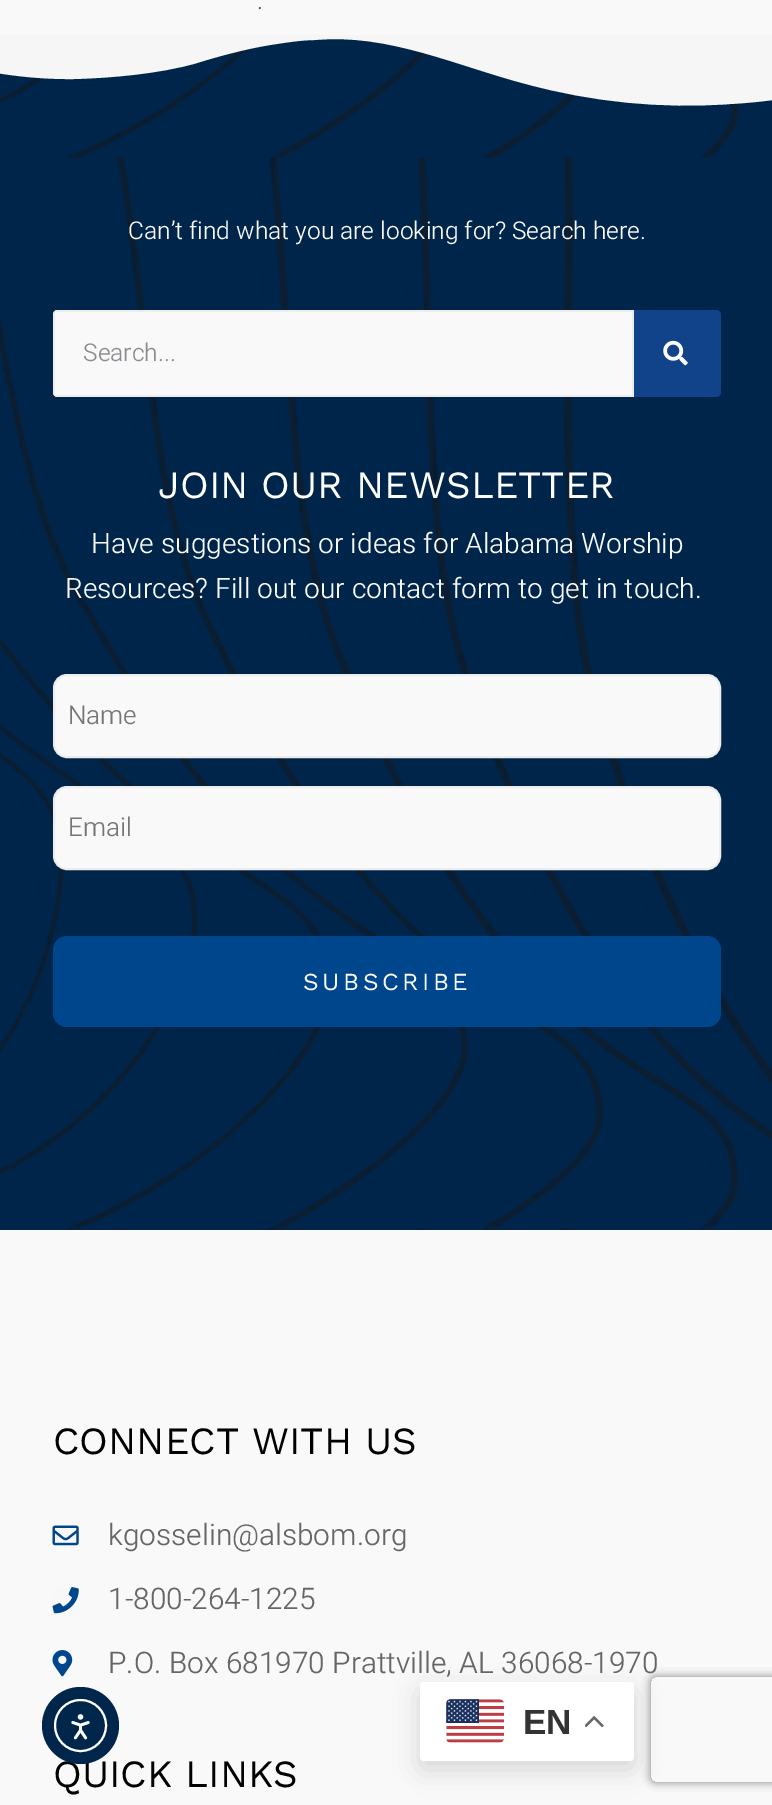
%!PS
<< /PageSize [772 1805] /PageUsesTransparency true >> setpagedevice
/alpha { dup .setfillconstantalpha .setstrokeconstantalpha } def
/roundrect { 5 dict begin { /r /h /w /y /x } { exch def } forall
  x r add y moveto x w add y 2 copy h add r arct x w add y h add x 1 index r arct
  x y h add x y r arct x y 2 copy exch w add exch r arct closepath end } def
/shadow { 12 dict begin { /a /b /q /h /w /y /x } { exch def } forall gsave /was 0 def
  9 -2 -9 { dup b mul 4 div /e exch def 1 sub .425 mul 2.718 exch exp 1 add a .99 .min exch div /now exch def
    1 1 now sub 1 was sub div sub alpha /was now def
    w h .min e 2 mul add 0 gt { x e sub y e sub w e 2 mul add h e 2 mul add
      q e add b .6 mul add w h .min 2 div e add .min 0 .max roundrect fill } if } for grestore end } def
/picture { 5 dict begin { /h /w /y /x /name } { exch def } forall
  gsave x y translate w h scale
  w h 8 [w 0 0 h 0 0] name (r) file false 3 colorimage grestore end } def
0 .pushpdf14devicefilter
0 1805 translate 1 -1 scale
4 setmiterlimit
0.98 0.976 0.976 setrgbcolor
0 0 772 1805 rectfill
/Heebo-Light [24.5 0 0 -24.5 0 0] selectfont
0.322 setgray
257 9 moveto (.) show
0 0.145 0.294 setrgbcolor
0 39 772 1191 rectfill
(img1.rgb) 0 48 772 1182 picture
0.965 0.965 0.969 setrgbcolor
newpath 315 40 moveto 388 33 457 66 526 84 curveto 592 102 661 109 730 104 curveto 768 102 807 96 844 85 curveto 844 35 lineto -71 35 lineto -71 57 lineto -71 57 -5 80 74 79 curveto 110 78 159 74 197 63 curveto 216 57 245 49 270 45 curveto 295 41 306 40 315 40 curveto closepath fill
0.98 0.976 0.976 setrgbcolor
128 239 moveto (Can’t find what you are looking for? Search here.) show
newpath 58 310 moveto 634 310 lineto 634 397 lineto 58 397 lineto 55 397 53 395 53 392 curveto 53 315 lineto 53 312 55 310 58 310 curveto closepath fill
0.929 setgray
newpath 58 310 moveto 55 310 53 312 53 315 curveto 53 392 lineto 53 395 55 397 58 397 curveto 634 397 lineto 634 310 lineto closepath 55 312 moveto 55 395 lineto 632 395 lineto 632 312 lineto closepath eofill
0.541 0.549 0.569 setrgbcolor
83 361 moveto (Search...) show
0.067 0.263 0.545 setrgbcolor
newpath 634 310 moveto 716 310 lineto 719 310 721 312 721 315 curveto 721 392 lineto 721 395 719 397 716 397 curveto 634 397 lineto closepath fill
(img2.rgb) 663 340 25 26 picture
/WorkSans-Regular [38.5 0 0 -38.5 0 0] selectfont
1 setgray
158 498 moveto (JOIN OUR NEWSLETTER) show
/Heebo-Light [28 0 0 -28 0 0] selectfont
0.98 0.976 0.976 setrgbcolor
91 553 moveto (Have suggestions or ideas for Alabama Worship) show
65 598 moveto (Resources? Fill out our contact form to get in touch.) show
54 675 666 82 13 roundrect gsave fill grestore
0.929 setgray
2 setlinewidth
stroke
/Heebo-Light [26 0 0 -26 0 0] selectfont
0.459 setgray
68 724 moveto (Name) show
0.98 0.976 0.976 setrgbcolor
54 787 666 82 13 roundrect gsave fill grestore
0.929 setgray
stroke
0.459 setgray
68 836 moveto (Email) show
0 0.275 0.553 setrgbcolor
53 936 668 91 14 roundrect fill
/WorkSans-Regular [24.5 0 0 -24.5 0 0] selectfont
0.98 0.976 0.976 setrgbcolor
303 990 moveto 3.5 0 (SUBSCRIBE) ashow
/WorkSans-Regular [38.5 0 0 -38.5 0 0] selectfont
0 setgray
53 1454 moveto (CONNECT WITH US) show
(img3.rgb) 52 1525 27 21 picture
/Heebo-Light [29.75 0 0 -29.75 0 0] selectfont
0.4 setgray
108 1545 moveto (kgosselin@alsbom.org) show
(img4.rgb) 52 1587 27 27 picture
108 1609 moveto (1-800-264-1225) show
(img5.rgb) 52 1650 21 27 picture
108 1673 moveto (P.O. Box 681970 Prattville, AL 36068-1970) show
/WorkSans-Regular [38.5 0 0 -38.5 0 0] selectfont
0 setgray
53 1787 moveto (QUICK LINKS) show
gsave
newpath 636 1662 moveto 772 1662 lineto 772 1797 lineto 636 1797 lineto closepath 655 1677 moveto 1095 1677 lineto 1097 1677 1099 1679 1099 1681 curveto 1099 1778 lineto 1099 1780 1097 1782 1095 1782 curveto 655 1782 lineto 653 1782 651 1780 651 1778 curveto 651 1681 lineto 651 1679 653 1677 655 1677 curveto closepath eoclip newpath
0.502 setgray
651 1677 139 105 4 4.5 1 shadow
grestore
0 0.149 0.294 setrgbcolor
newpath 80.5 1725.5 38.5 0 360 arc closepath fill
1 setgray
newpath 80.5 1725.5 25.5 0 360 arc closepath stroke
(img6.rgb) 71 1714 19 26 picture
0 setgray
420 1691 214 78 4 13 0.15 shadow
1 setgray
420 1682 214 79 4 roundrect fill
(img7.rgb) 446 1699 58 44 picture
/LiberationSans-Bold [35 0 0 -35 0 0] selectfont
0.2 setgray
523 1734 moveto (EN) show
(img8.rgb) 585 1716 19 12 picture
.poppdf14devicefilter showpage
